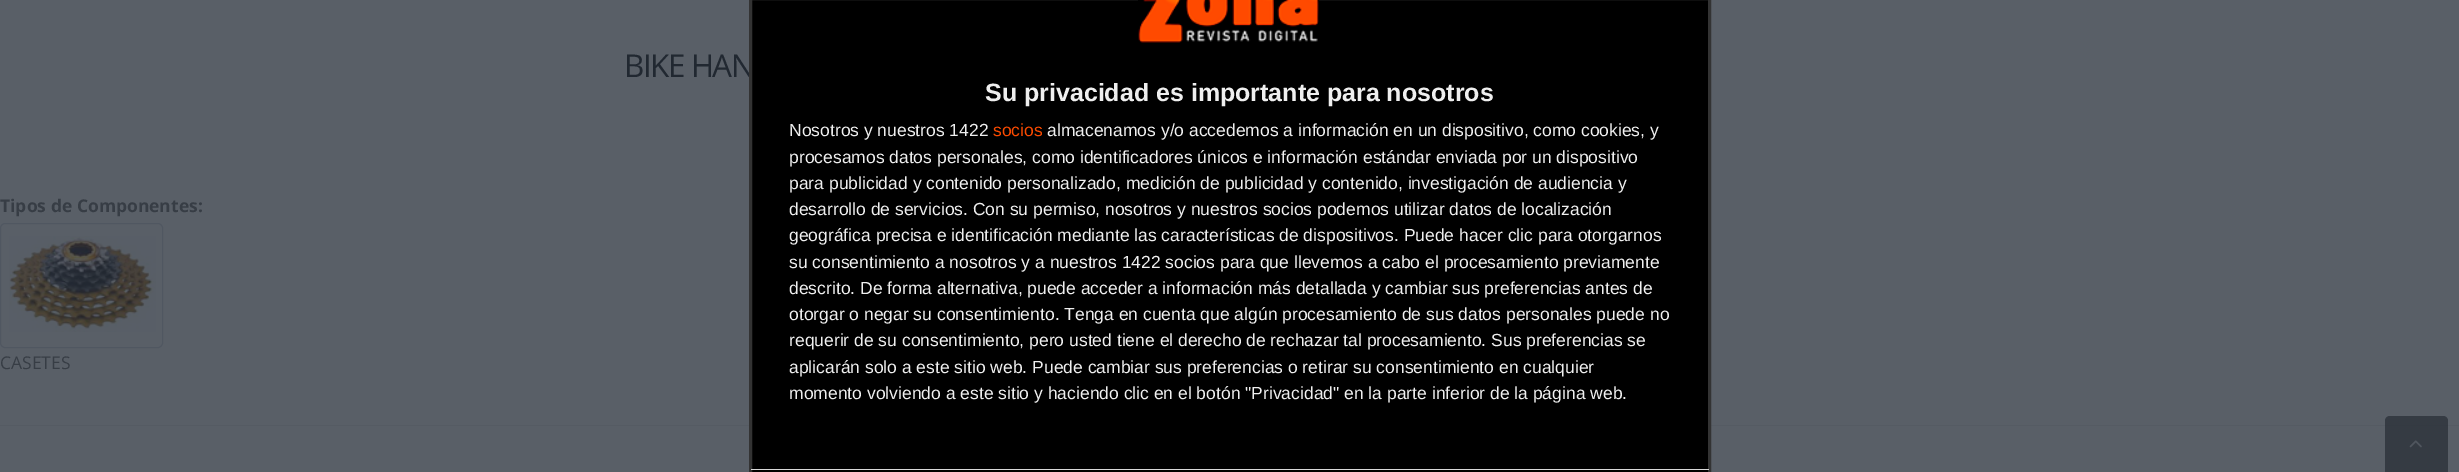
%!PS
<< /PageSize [2459 472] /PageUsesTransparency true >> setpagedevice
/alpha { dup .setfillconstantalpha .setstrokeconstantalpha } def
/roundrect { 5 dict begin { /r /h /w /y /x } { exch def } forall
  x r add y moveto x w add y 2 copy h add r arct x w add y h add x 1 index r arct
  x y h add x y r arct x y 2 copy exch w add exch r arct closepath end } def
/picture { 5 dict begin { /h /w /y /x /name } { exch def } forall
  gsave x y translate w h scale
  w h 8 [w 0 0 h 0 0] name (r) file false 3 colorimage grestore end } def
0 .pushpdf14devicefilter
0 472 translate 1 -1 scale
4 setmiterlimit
0.349 0.373 0.404 setrgbcolor
0 0 2459 472 rectfill
/OpenSans-Regular [31.5 0 0 -31.5 0 0] selectfont
0.129 0.157 0.192 setrgbcolor
624 77 moveto -1.5 0 (BIKE HAN) ashow
/OpenSans-Bold [17.5 0 0 -17.5 0 0] selectfont
0.216 0.239 0.271 setrgbcolor
0 212 moveto (Tipos de Componentes:) show
0.314 0.341 0.38 setrgbcolor
0.5 223.5 162 124 4.5 roundrect stroke
(img1.rgb) 9 236 147 96 picture
/OpenSans-Regular [17.5 0 0 -17.5 0 0] selectfont
0.216 0.239 0.271 setrgbcolor
0 369 moveto (CASETES) show
0.333 0.357 0.388 setrgbcolor
0 425 2459 1 rectfill
0 setgray
newpath 750.5 -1.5 moveto 1709.5 -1.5 lineto 1709.5 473.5 lineto 750.5 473.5 lineto closepath gsave fill grestore
0.2 setgray
3 setlinewidth
stroke
(img2.rgb) 1138 0 181 43 picture
/LiberationSans-Bold [25 0 0 -25 0 0] selectfont
0.937 setgray
985 101 moveto (Su privacidad es importante para nosotros) show
/LiberationSans-Regular [17.5 0 0 -17.5 0 0] selectfont
789 136 moveto (Nosotros y nuestros 1422) show
0.98 0.29 0 setrgbcolor
993 136 moveto (socios) show
0.937 setgray
1047 136 moveto (almacenamos y/o accedemos a información en un dispositivo, como cookies, y) show
789 163 moveto (procesamos datos personales, como identificadores únicos e información estándar enviada por un dispositivo) show
789 189 moveto (para publicidad y contenido personalizado, medición de publicidad y contenido, investigación de audiencia y) show
789 215 moveto (desarrollo de servicios. Con su permiso, nosotros y nuestros socios podemos utilizar datos de localización) show
789 241 moveto (geográfica precisa e identificación mediante las características de dispositivos. Puede hacer clic para otorgarnos) show
789 268 moveto (su consentimiento a nosotros y a nuestros 1422 socios para que llevemos a cabo el procesamiento previamente) show
789 294 moveto (descrito. De forma alternativa, puede acceder a información más detallada y cambiar sus preferencias antes de) show
789 320 moveto (otorgar o negar su consentimiento. Tenga en cuenta que algún procesamiento de sus datos personales puede no) show
789 346 moveto (requerir de su consentimiento, pero usted tiene el derecho de rechazar tal procesamiento. Sus preferencias se) show
789 373 moveto (aplicarán solo a este sitio web. Puede cambiar sus preferencias o retirar su consentimiento en cualquier) show
789 399 moveto (momento volviendo a este sitio y haciendo clic en el botón "Privacidad" en la parte inferior de la página web.) show
0.847 setgray
751 469 958 1 rectfill
0.75 alpha
0.161 0.184 0.216 setrgbcolor
newpath 2390 416 moveto 2443 416 lineto 2446 416 2448 418 2448 421 curveto 2448 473 lineto 2385 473 lineto 2385 421 lineto 2385 418 2387 416 2390 416 curveto closepath fill
1 alpha
(img3.rgb) 2409 440 13 8 picture
.poppdf14devicefilter showpage
